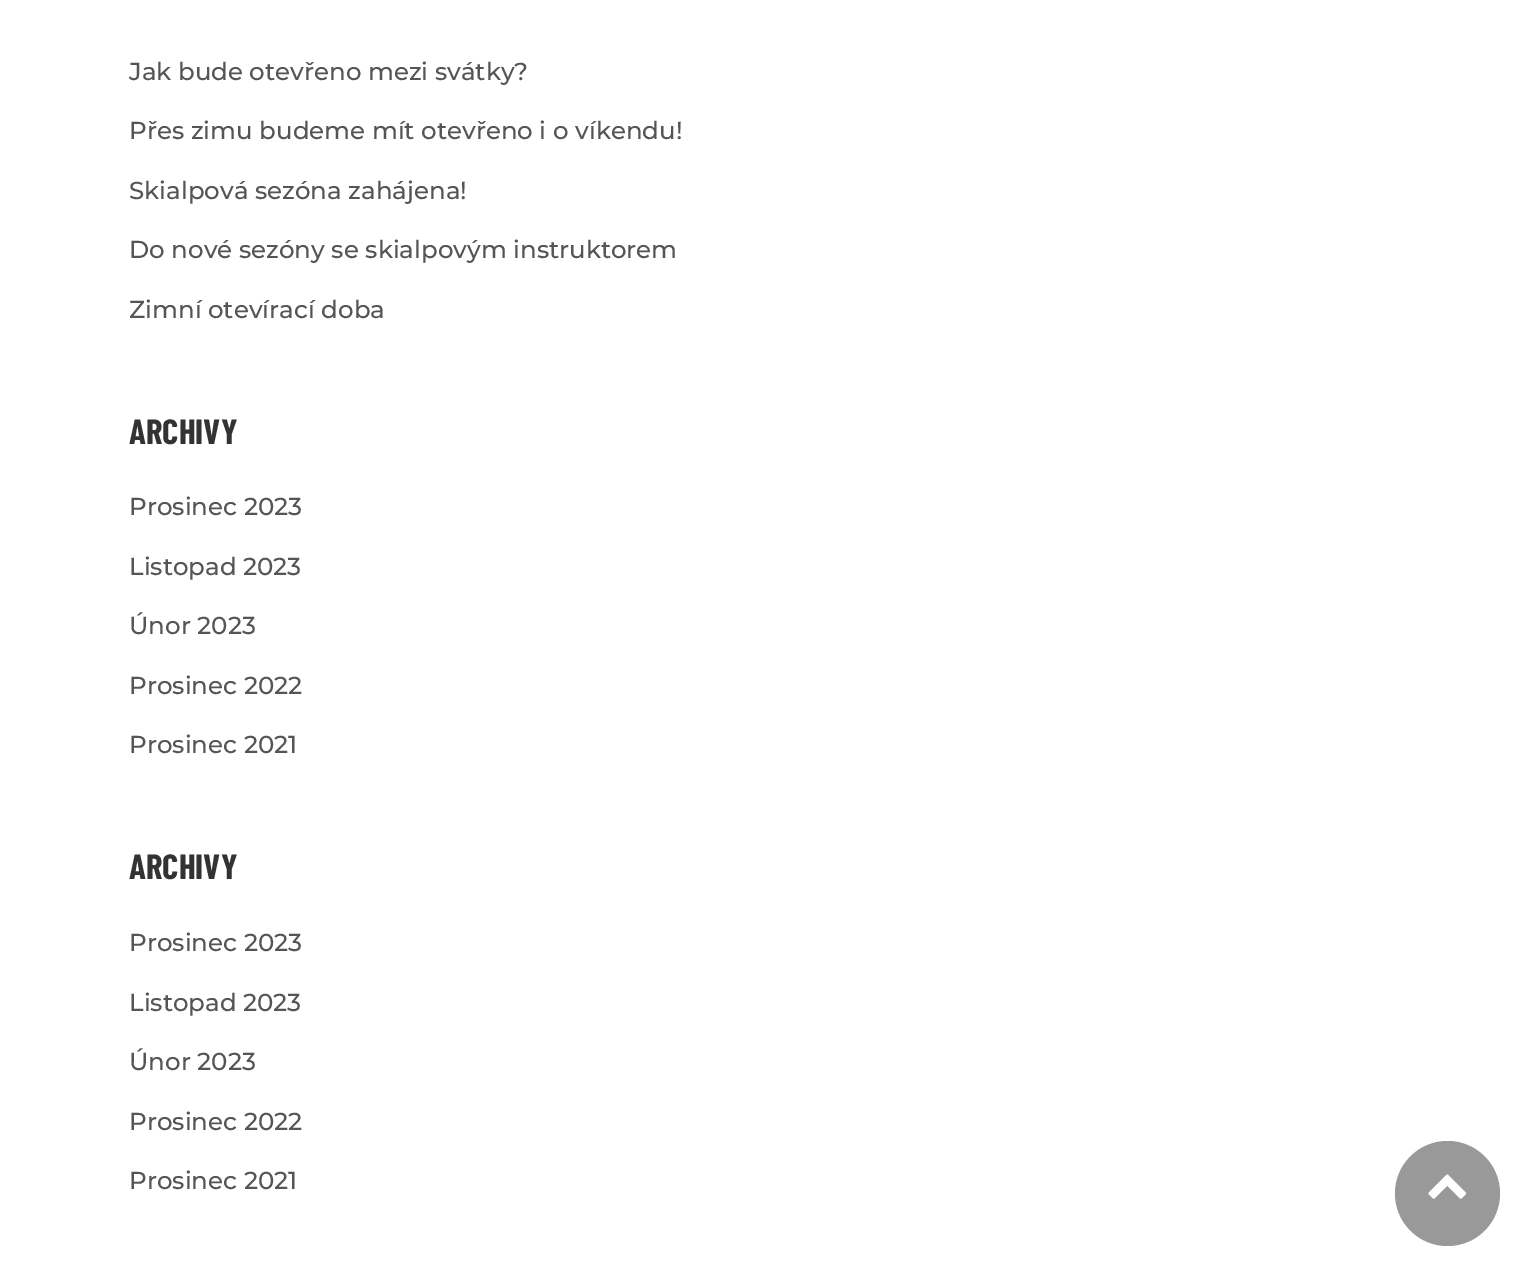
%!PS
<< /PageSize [1534 1280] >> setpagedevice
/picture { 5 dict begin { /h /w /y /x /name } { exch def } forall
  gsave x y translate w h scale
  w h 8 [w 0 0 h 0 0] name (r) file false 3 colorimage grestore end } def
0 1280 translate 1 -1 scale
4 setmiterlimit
1 setgray
0 0 1534 1280 rectfill
/Montserrat-Medium [24.5 0 0 -24.5 0 0] selectfont
0.333 setgray
129 80 moveto (Jak bude otevřeno mezi svátky?) show
129 139 moveto (Přes zimu budeme mít otevřeno i o víkendu!) show
129 199 moveto (Skialpová sezóna zahájena!) show
129 258 moveto (Do nové sezóny se skialpovým instruktorem) show
129 318 moveto (Zimní otevírací doba) show
/BarlowCondensed-Bold [35 0 0 -35 0 0] selectfont
0.2 setgray
129 444 moveto (ARCHIVY) show
/Montserrat-Medium [24.5 0 0 -24.5 0 0] selectfont
0.333 setgray
129 515 moveto (Prosinec 2023) show
129 575 moveto (Listopad 2023) show
129 634 moveto (Únor 2023) show
129 694 moveto (Prosinec 2022) show
129 753 moveto (Prosinec 2021) show
/BarlowCondensed-Bold [35 0 0 -35 0 0] selectfont
0.2 setgray
129 879 moveto (ARCHIVY) show
/Montserrat-Medium [24.5 0 0 -24.5 0 0] selectfont
0.333 setgray
129 951 moveto (Prosinec 2023) show
129 1011 moveto (Listopad 2023) show
129 1070 moveto (Únor 2023) show
129 1130 moveto (Prosinec 2022) show
129 1189 moveto (Prosinec 2021) show
0.6 setgray
newpath 1447.5 1193.5 52.5 0 360 arc closepath fill
(img1.rgb) 1428 1174 39 25 picture
showpage
